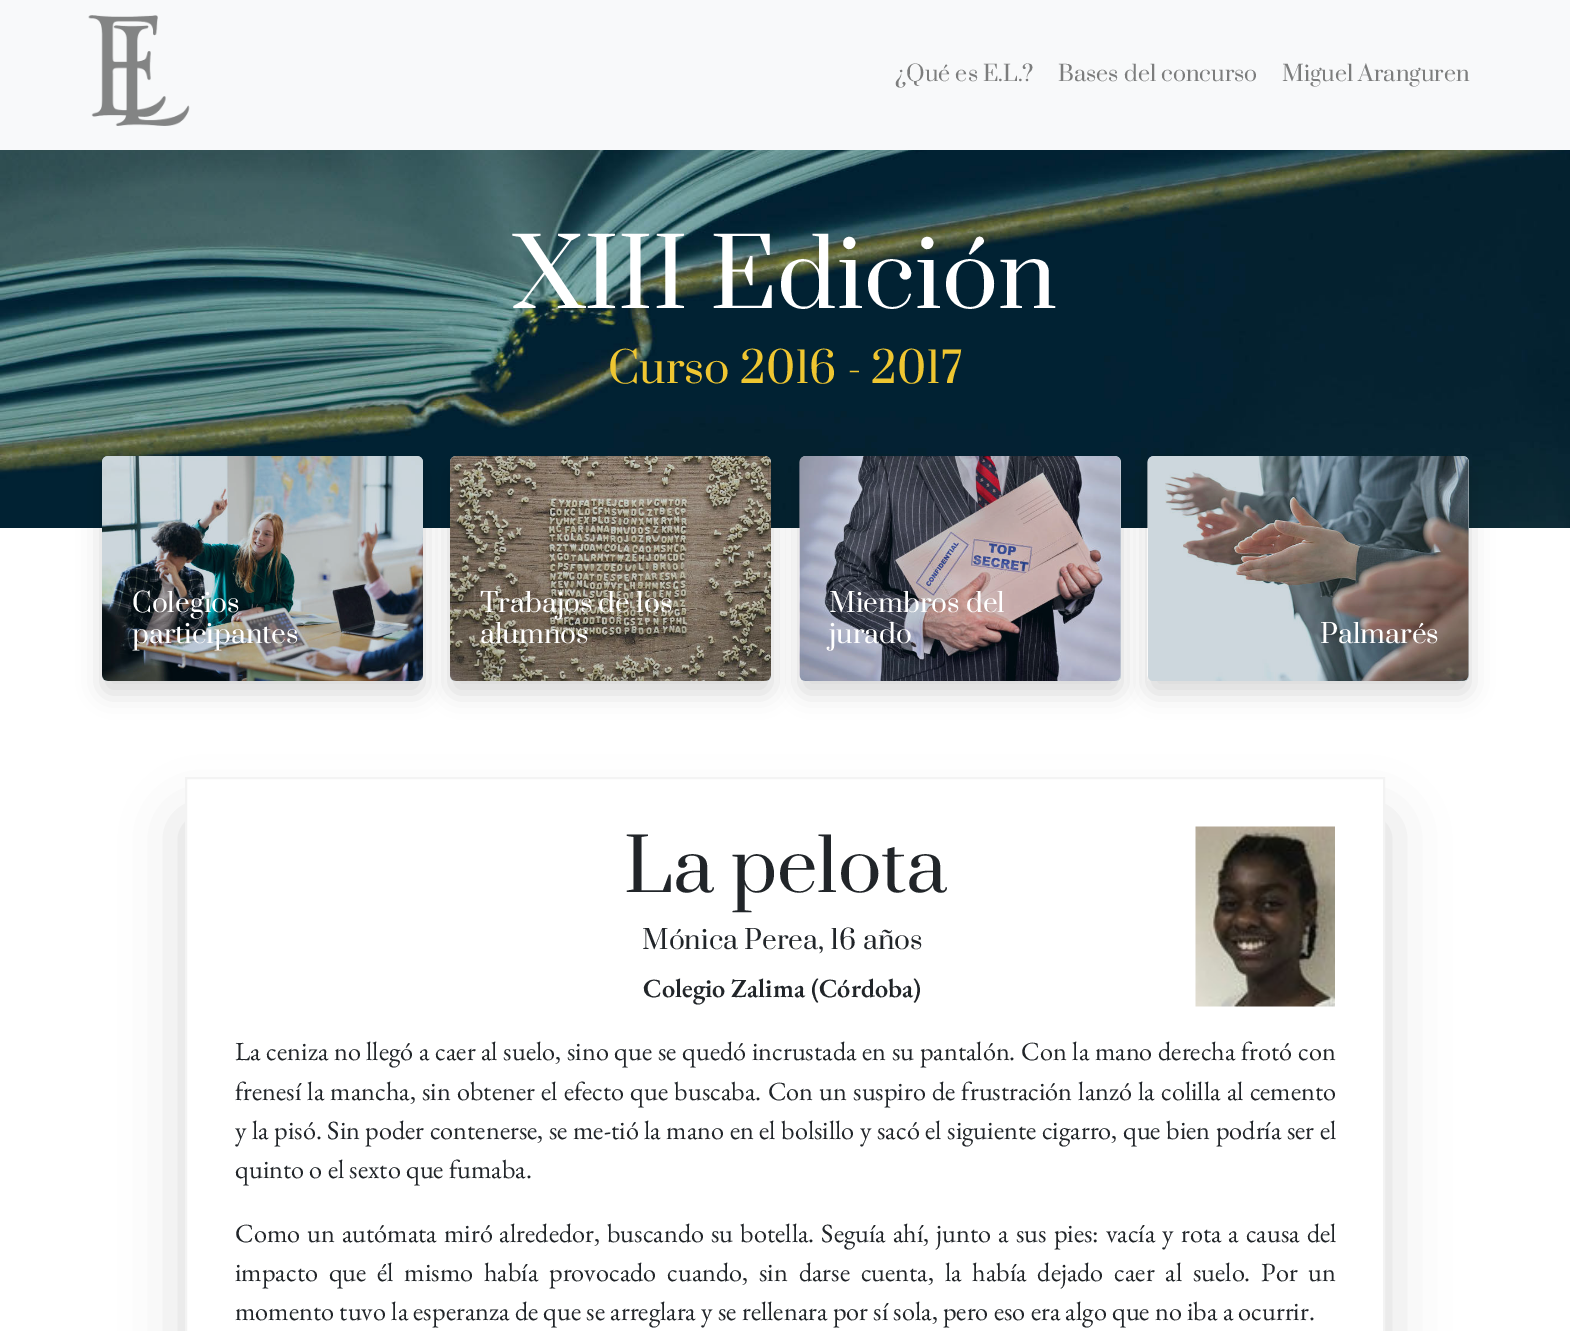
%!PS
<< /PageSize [1570 1331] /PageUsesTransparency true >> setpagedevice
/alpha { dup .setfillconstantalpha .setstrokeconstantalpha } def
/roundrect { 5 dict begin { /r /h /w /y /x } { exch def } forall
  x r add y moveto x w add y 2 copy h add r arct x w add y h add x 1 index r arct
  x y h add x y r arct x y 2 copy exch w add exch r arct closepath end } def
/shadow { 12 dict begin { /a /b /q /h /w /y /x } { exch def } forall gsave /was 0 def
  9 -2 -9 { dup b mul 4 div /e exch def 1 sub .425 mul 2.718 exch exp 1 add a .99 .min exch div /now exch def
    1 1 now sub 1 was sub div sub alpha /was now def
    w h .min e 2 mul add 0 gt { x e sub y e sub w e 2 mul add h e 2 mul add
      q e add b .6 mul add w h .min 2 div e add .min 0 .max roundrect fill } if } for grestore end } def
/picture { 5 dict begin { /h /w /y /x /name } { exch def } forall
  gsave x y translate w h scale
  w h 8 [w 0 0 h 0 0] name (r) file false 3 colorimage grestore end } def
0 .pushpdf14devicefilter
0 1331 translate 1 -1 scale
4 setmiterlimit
1 setgray
0 0 1570 1331 rectfill
0.973 0.976 0.98 setrgbcolor
0 0 1570 150 rectfill
(img1.rgb) 88 15 102 111 picture
/Prata-Regular [21.5 0 0 -21.5 0 0] selectfont
0.486 0.49 0.49 setrgbcolor
895 81 moveto (¿Qué es E.L.?) show
1058 81 moveto (Bases del concurso) show
1282 81 moveto (Miguel Aranguren) show
(img2.rgb) 0 150 1570 378 picture
/Prata-Regular [93 0 0 -93 0 0] selectfont
1 setgray
513 308 moveto (XIII Edición) show
/Prata-Regular [42 0 0 -42 0 0] selectfont
0.937 0.776 0.192 setrgbcolor
608 383 moveto (Curso 2016 - 2017) show
0 setgray
102 468 321 225 6 12 0.15 shadow
(img3.rgb) 102 456 321 225 picture
0.2 alpha
0.012 0.22 0.329 setrgbcolor
102 456 321 225 5 roundrect fill
/Prata-Regular [26.25 0 0 -26.25 0 0] selectfont
1 alpha
1 setgray
132 612 moveto (Colegios) show
132 643 moveto (participantes) show
0 setgray
450 468 321 225 6 12 0.15 shadow
(img4.rgb) 450 456 321 225 picture
0.2 alpha
0.012 0.22 0.329 setrgbcolor
450 456 321 225 5 roundrect fill
1 alpha
1 setgray
480 612 moveto (Trabajos de los) show
480 643 moveto (alumnos) show
0 setgray
800 468 321 225 6 12 0.15 shadow
1 setgray
800 456 321 225 6 roundrect fill
(img5.rgb) 799 456 322 225 picture
0.2 alpha
0.012 0.22 0.329 setrgbcolor
800 456 321 225 5 roundrect fill
1 alpha
1 setgray
829 612 moveto (Miembros del) show
829 643 moveto (jurado) show
0 setgray
1148 468 321 225 6 12 0.15 shadow
1 setgray
1148 456 321 225 6 roundrect fill
(img6.rgb) 1147 456 322 225 picture
0.2 alpha
0.012 0.22 0.329 setrgbcolor
1148 456 321 225 5 roundrect fill
1 alpha
1 setgray
1320 643 moveto (Palmarés) show
gsave
newpath 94 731 moveto 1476 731 lineto 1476 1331 lineto 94 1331 lineto closepath 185 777 moveto 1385 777 lineto 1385 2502 lineto 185 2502 lineto closepath eoclip newpath
0.004 setgray
185 822 1200 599 0 30 0.15 shadow
grestore
0.953 setgray
2 setlinewidth
186 778 1198 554 rectstroke
/Prata-Regular [72 0 0 -72 0 0] selectfont
0.129 0.145 0.161 setrgbcolor
624 892 moveto (La pelota) show
(img7.rgb) 1195 826 140 181 picture
/Prata-Regular [26.25 0 0 -26.25 0 0] selectfont
642 949 moveto (Mónica Perea, 16 años) show
/EBGaramond-SemiBold [26.25 0 0 -26.25 0 0] selectfont
643 997 moveto (Colegio Zalima \(Córdoba\)) show
/EBGaramond-Regular [26.25 0 0 -26.25 0 0] selectfont
235 1060 moveto 0.4 0 32 (La ceniza no llegó a caer al suelo, sino que se quedó incrustada en su pantalón. Con la mano derecha frotó con) widthshow
235 1100 moveto 0.9 0 32 (frenesí la mancha, sin obtener el efecto que buscaba. Con un suspiro de frustración lanzó la colilla al cemento) widthshow
235 1139 moveto 0.25 0 32 (y la pisó. Sin poder contenerse, se me-tió la mano en el bolsillo y sacó el siguiente cigarro, que bien podría ser el) widthshow
235 1178 moveto (quinto o el sexto que fumaba.) show
235 1242 moveto 1.75 0 32 (Como un autómata miró alrededor, buscando su botella. Seguía ahí, junto a sus pies: vacía y rota a causa del) widthshow
235 1281 moveto 5.5 0 32 (impacto que él mismo había provocado cuando, sin darse cuenta, la había dejado caer al suelo. Por un) widthshow
235 1320 moveto (momento tuvo la esperanza de que se arreglara y se rellenara por sí sola, pero eso era algo que no iba a ocurrir.) show
.poppdf14devicefilter showpage
